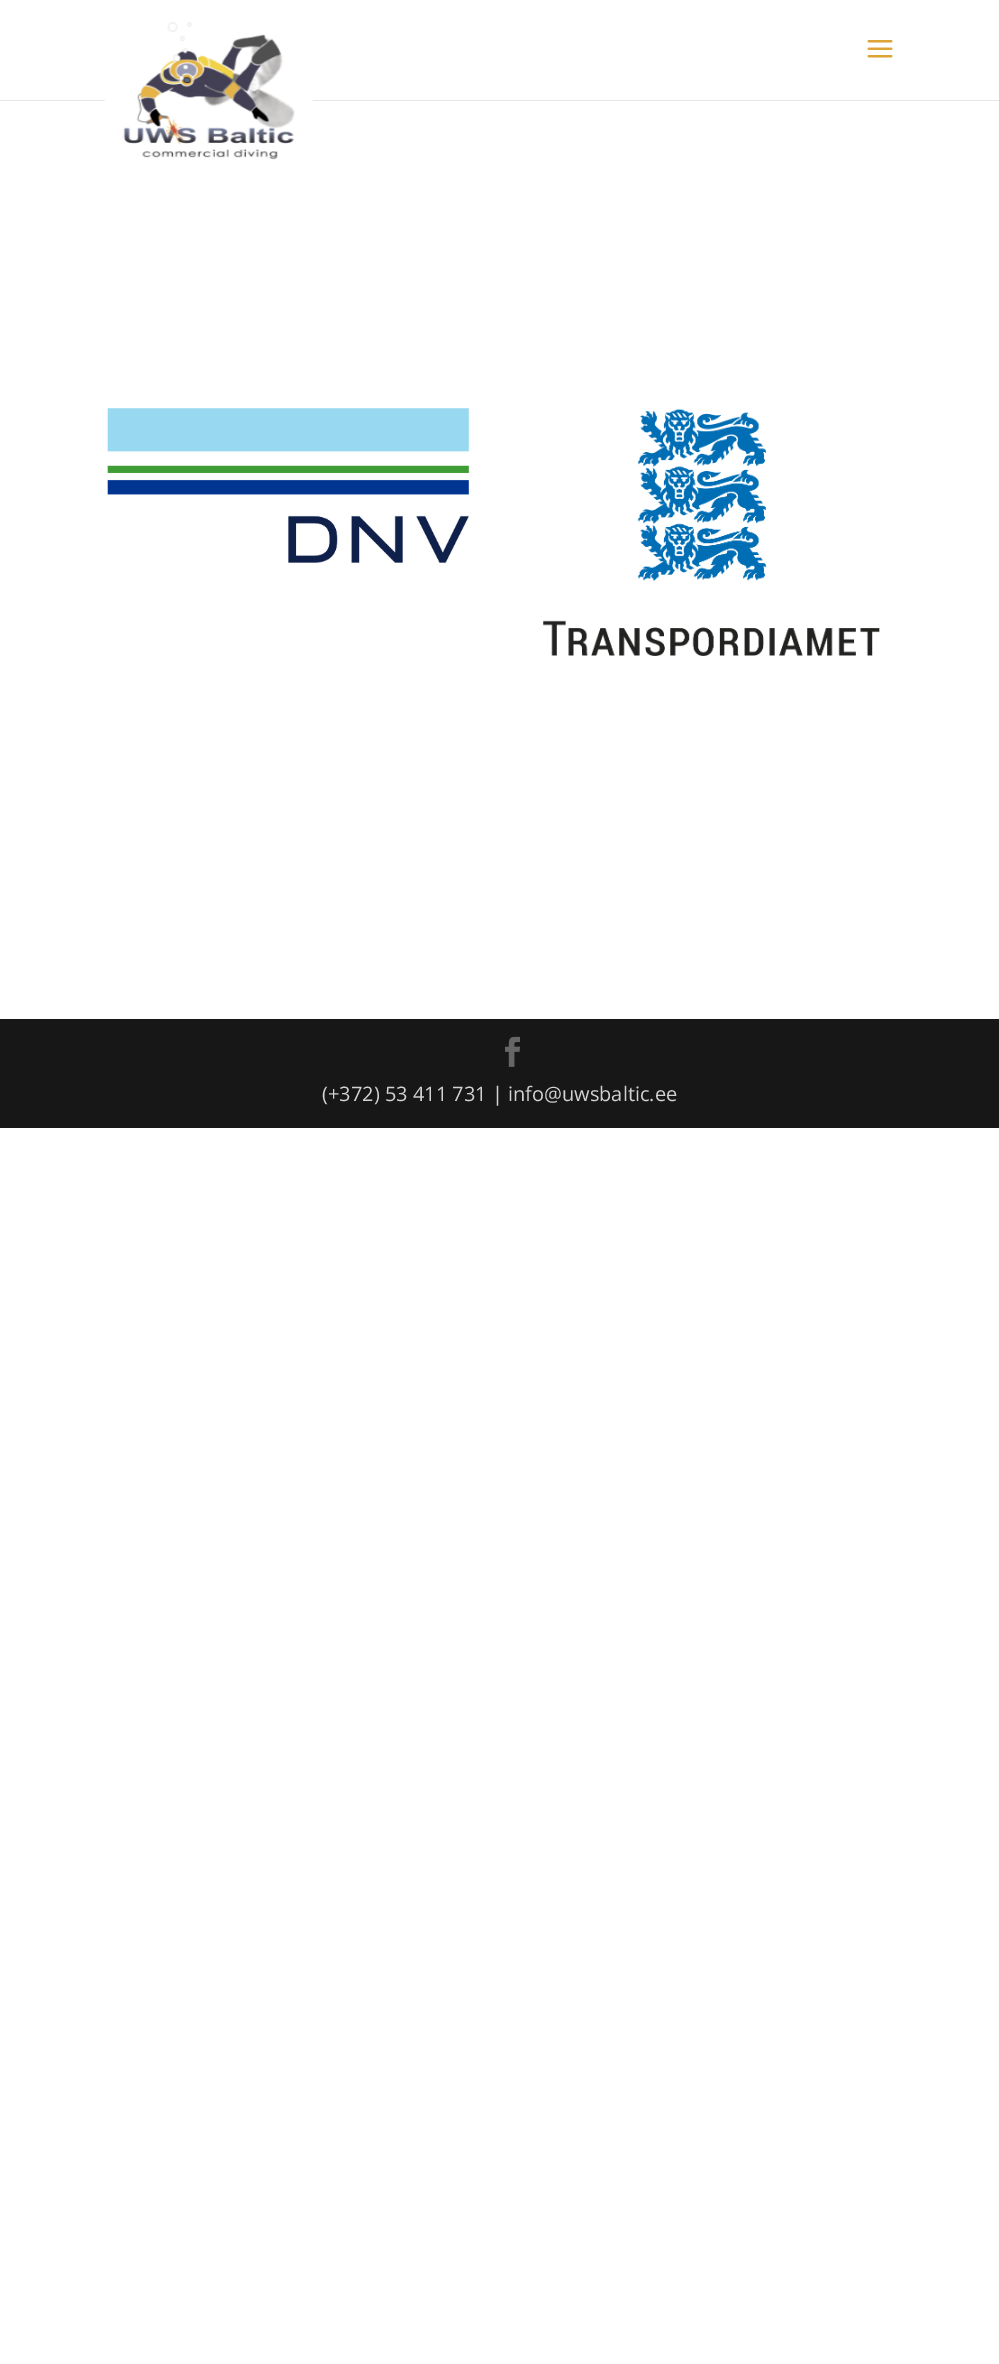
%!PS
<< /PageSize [999 2364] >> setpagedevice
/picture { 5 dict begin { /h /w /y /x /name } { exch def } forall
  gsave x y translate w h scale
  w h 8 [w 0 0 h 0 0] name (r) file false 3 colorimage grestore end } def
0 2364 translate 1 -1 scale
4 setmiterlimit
1 setgray
0 0 999 2364 rectfill
0.902 setgray
0 100 999 1 rectfill
(img1.rgb) 104 22 209 138 picture
(img2.rgb) 867 40 26 18 picture
(img3.rgb) 107 408 363 155 picture
(img4.rgb) 543 409 337 247 picture
0.09 setgray
0 1019 999 109 rectfill
(img5.rgb) 505 1036 15 31 picture
/OpenSans-Regular [20 0 0 -20 0 0] selectfont
0.824 setgray
322 1101 moveto (\(+372\) 53 411 731 | info@uwsbaltic.ee) show
showpage
